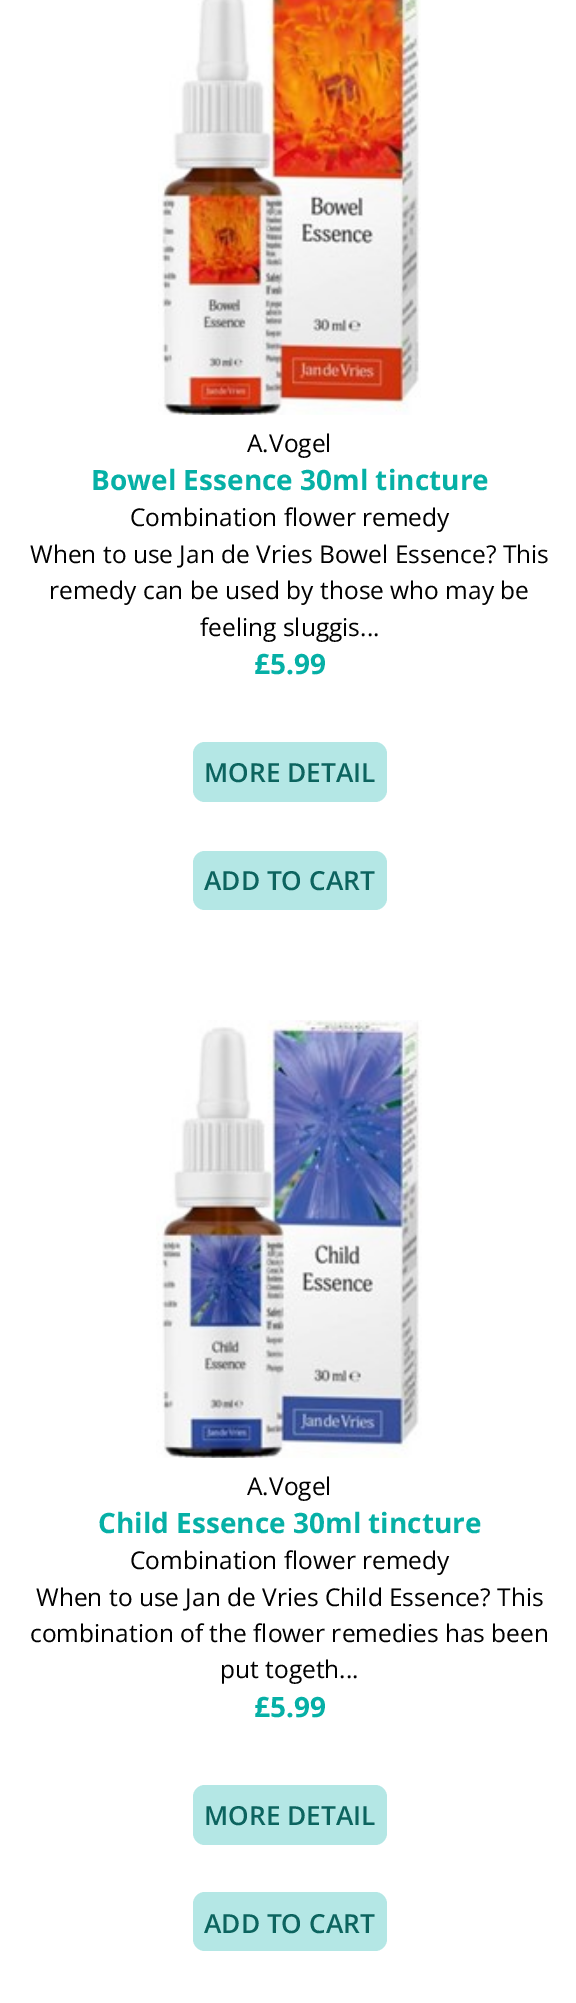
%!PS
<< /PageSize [576 2003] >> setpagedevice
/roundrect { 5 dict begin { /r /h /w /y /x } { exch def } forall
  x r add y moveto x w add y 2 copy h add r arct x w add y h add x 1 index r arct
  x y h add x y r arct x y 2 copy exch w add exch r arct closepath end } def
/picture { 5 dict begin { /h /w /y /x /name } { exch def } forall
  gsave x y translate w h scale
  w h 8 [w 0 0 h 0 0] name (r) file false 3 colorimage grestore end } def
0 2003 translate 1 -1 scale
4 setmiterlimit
1 setgray
0 0 576 2003 rectfill
(img1.rgb) 158 0 263 415 picture
/OpenSans-Regular [24.5 0 0 -24.5 0 0] selectfont
0 setgray
247 452 moveto (A.Vogel) show
/OpenSans-Bold [28 0 0 -28 0 0] selectfont
0.024 0.69 0.651 setrgbcolor
91 490 moveto (Bowel Essence 30ml tincture) show
/OpenSans-Regular [24.5 0 0 -24.5 0 0] selectfont
0 setgray
130 526 moveto (Combination flower remedy) show
30 563 moveto (When to use Jan de Vries Bowel Essence? This) show
49 599 moveto (remedy can be used by those who may be) show
200 636 moveto (feeling sluggis...) show
/OpenSans-Bold [28 0 0 -28 0 0] selectfont
0.024 0.69 0.651 setrgbcolor
254 674 moveto (£5.99) show
0.706 0.906 0.898 setrgbcolor
193 742 194 60 12 roundrect fill
/OpenSans-SemiBold [26.25 0 0 -26.25 0 0] selectfont
0.047 0.392 0.373 setrgbcolor
204 782 moveto (MORE DETAIL) show
0.706 0.906 0.898 setrgbcolor
193 851 194 59 12 roundrect fill
0.047 0.392 0.373 setrgbcolor
204 890 moveto (ADD TO CART) show
(img2.rgb) 156 1020 266 438 picture
/OpenSans-Regular [24.5 0 0 -24.5 0 0] selectfont
0 setgray
247 1495 moveto (A.Vogel) show
/OpenSans-Bold [28 0 0 -28 0 0] selectfont
0.024 0.69 0.651 setrgbcolor
98 1533 moveto (Child Essence 30ml tincture) show
/OpenSans-Regular [24.5 0 0 -24.5 0 0] selectfont
0 setgray
130 1569 moveto (Combination flower remedy) show
36 1606 moveto (When to use Jan de Vries Child Essence? This) show
30 1642 moveto (combination of the flower remedies has been) show
220 1678 moveto (put togeth...) show
/OpenSans-Bold [28 0 0 -28 0 0] selectfont
0.024 0.69 0.651 setrgbcolor
254 1717 moveto (£5.99) show
0.706 0.906 0.898 setrgbcolor
193 1785 194 60 12 roundrect fill
/OpenSans-SemiBold [26.25 0 0 -26.25 0 0] selectfont
0.047 0.392 0.373 setrgbcolor
204 1825 moveto (MORE DETAIL) show
0.706 0.906 0.898 setrgbcolor
193 1892 194 59 12 roundrect fill
0.047 0.392 0.373 setrgbcolor
204 1933 moveto (ADD TO CART) show
showpage
